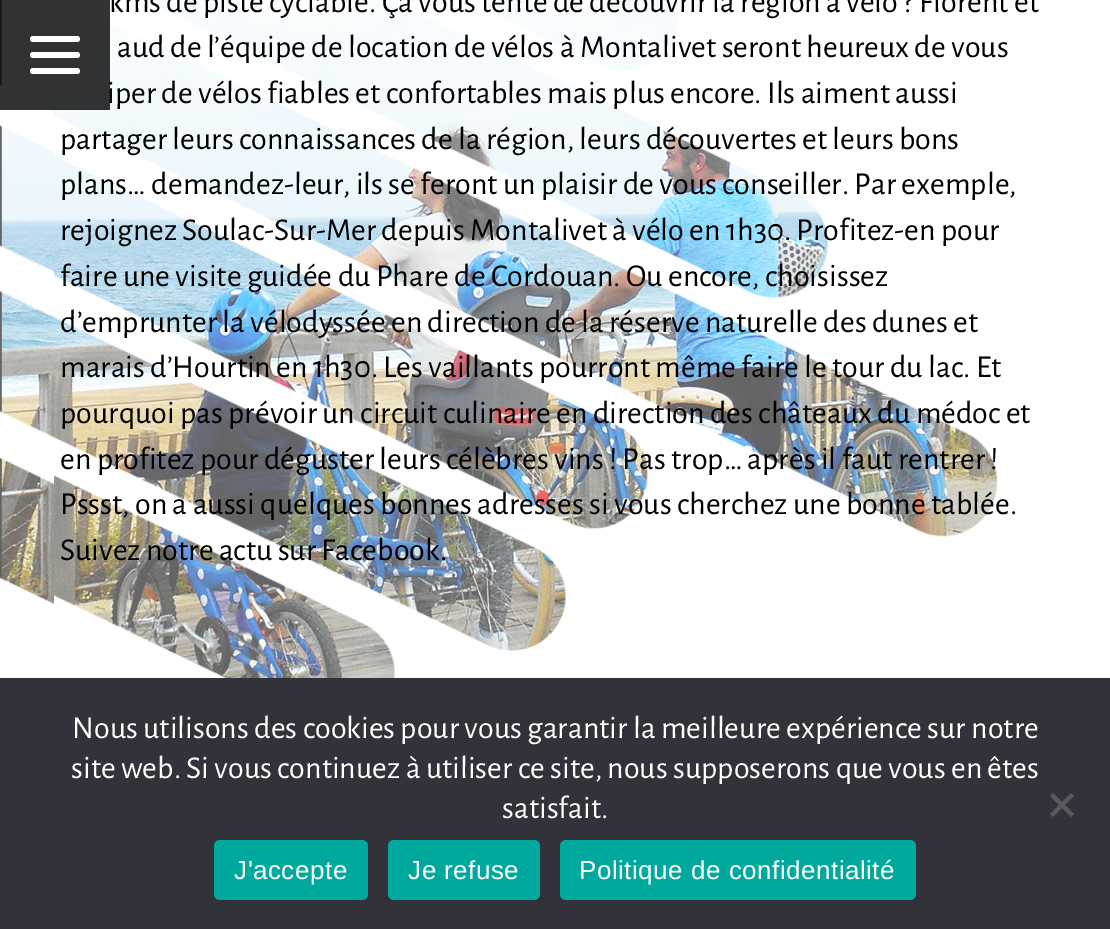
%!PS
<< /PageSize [1110 929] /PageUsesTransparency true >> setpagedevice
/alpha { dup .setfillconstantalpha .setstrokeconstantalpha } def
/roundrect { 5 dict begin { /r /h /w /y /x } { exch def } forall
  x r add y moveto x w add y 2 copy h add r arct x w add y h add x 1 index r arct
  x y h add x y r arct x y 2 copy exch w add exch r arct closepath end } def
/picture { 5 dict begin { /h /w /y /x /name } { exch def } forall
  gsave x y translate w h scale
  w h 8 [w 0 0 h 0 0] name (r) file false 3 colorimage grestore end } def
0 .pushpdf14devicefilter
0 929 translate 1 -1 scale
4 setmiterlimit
1 setgray
0 0 1110 929 rectfill
(img1.rgb) 0 0 998 678 picture
/AlegreyaSans-Regular [32 0 0 -32 0 0] selectfont
0 setgray
107 103 moveto (iper de vélos fiables et confortables mais plus encore. Ils aiment aussi) show
0.8 alpha
0 0 110 110 rectfill
1 alpha
1 setgray
30 36 50 6 3 roundrect fill
30 52 50 6 3 roundrect fill
30 68 50 6 3 roundrect fill
0 setgray
109 12 moveto (kms de piste cyclable. Ça vous tente de découvrir la région à vélo ? Florent et) show
117 57 moveto (aud de l’équipe de location de vélos à Montalivet seront heureux de vous) show
60 149 moveto (partager leurs connaissances de la région, leurs découvertes et leurs bons) show
60 194 moveto (plans… demandez-leur, ils se feront un plaisir de vous conseiller. Par exemple,) show
60 240 moveto (rejoignez Soulac-Sur-Mer depuis Montalivet à vélo en 1h30. Profitez-en pour) show
60 286 moveto (faire une visite guidée du Phare de Cordouan. Ou encore, choisissez) show
60 332 moveto (d’emprunter la vélodyssée en direction de la réserve naturelle des dunes et) show
60 377 moveto (marais d’Hourtin en 1h30. Les vaillants pourront même faire le tour du lac. Et) show
60 423 moveto (pourquoi pas prévoir un circuit culinaire en direction des châteaux du médoc et) show
60 469 moveto (en profitez pour déguster leurs célèbres vins ! Pas trop… après il faut rentrer !) show
60 514 moveto (Pssst, on a aussi quelques bonnes adresses si vous cherchez une bonne tablée.) show
60 560 moveto (Suivez notre actu sur Facebook.) show
0.196 0.196 0.227 setrgbcolor
0 678 1110 251 rectfill
1 setgray
72 738 moveto (Nous utilisons des cookies pour vous garantir la meilleure expérience sur notre) show
71 778 moveto (site web. Si vous continuez à utiliser ce site, nous supposerons que vous en êtes) show
502 818 moveto (satisfait.) show
0.349 0.349 0.365 setrgbcolor
newpath 1071 793 moveto 1074 796 lineto 1053 817 lineto 1050 814 lineto closepath fill
newpath 1050 796 moveto 1053 793 lineto 1074 814 lineto 1071 817 lineto closepath fill
0 0.663 0.616 setrgbcolor
214 840 154 60 6 roundrect fill
/LiberationSans-Regular [26 0 0 -26 0 0] selectfont
1 setgray
234 879 moveto 0.5 0 (J'accepte) ashow
0 0.663 0.616 setrgbcolor
388 840 152 60 6 roundrect fill
1 setgray
408 879 moveto 0.5 0 (Je refuse) ashow
0 0.663 0.616 setrgbcolor
560 840 356 60 6 roundrect fill
1 setgray
579 879 moveto 0.5 0 (Politique de confidentialité) ashow
.poppdf14devicefilter showpage
